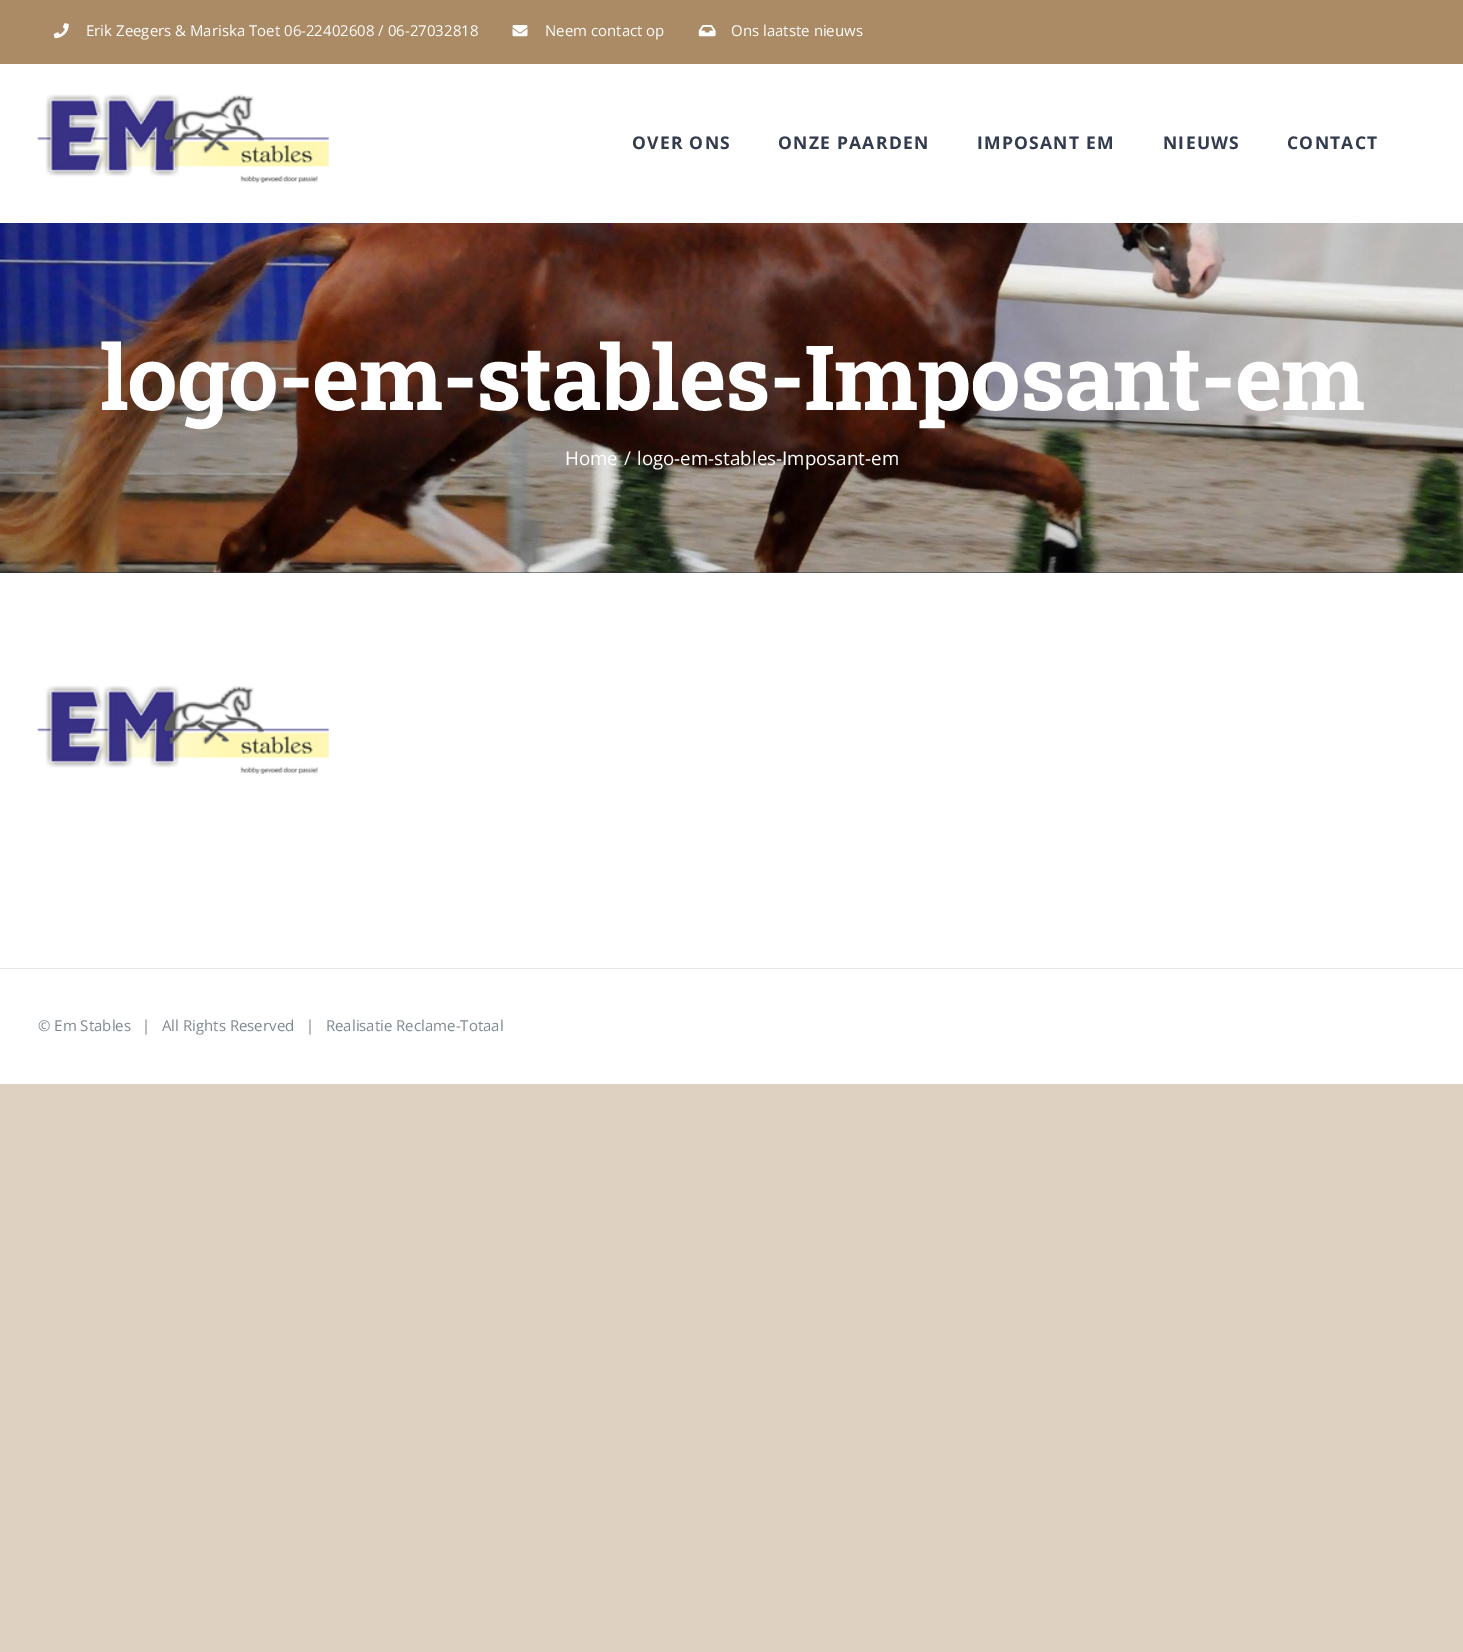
%!PS
<< /PageSize [1463 1652] >> setpagedevice
/picture { 5 dict begin { /h /w /y /x /name } { exch def } forall
  gsave x y translate w h scale
  w h 8 [w 0 0 h 0 0] name (r) file false 3 colorimage grestore end } def
0 1652 translate 1 -1 scale
4 setmiterlimit
0.871 0.82 0.761 setrgbcolor
0 0 1463 1652 rectfill
1 setgray
0 573 1463 511 rectfill
0.671 0.545 0.396 setrgbcolor
0 0 1463 64 rectfill
(img1.rgb) 53 23 16 16 picture
/OpenSans-Regular [15 0 0 -15 0 0] selectfont
1 setgray
86 36 moveto (Erik Zeegers & Mariska Toet 06-22402608 / 06-27032818) show
(img2.rgb) 512 25 16 12 picture
545 36 moveto (Neem contact op) show
(img3.rgb) 698 25 18 12 picture
731 36 moveto (Ons laatste nieuws) show
0 64 1463 159 rectfill
(img4.rgb) 37 94 292 89 picture
/OpenSans-Bold [17.5 0 0 -17.5 0 0] selectfont
0.2 0.235 0.306 setrgbcolor
632 149 moveto 1.25 0 (OVER ONS) ashow
778 149 moveto 1.25 0 (ONZE PAARDEN) ashow
977 149 moveto 1.25 0 (IMPOSANT EM) ashow
1163 149 moveto 1.25 0 (NIEUWS) ashow
1287 149 moveto 1.25 0 (CONTACT) ashow
0.173 0.184 0.224 setrgbcolor
0 572 1463 1 rectfill
(img5.rgb) 0 223 1463 350 picture
/RobotoSlab-Bold [90 0 0 -90 0 0] selectfont
1 setgray
100 410 moveto -1.25 0 (logo-em-stables-Imposant-em) ashow
/OpenSans-Regular [18.75 0 0 -18.75 0 0] selectfont
565 465 moveto (Home) show
624 465 moveto (/) show
637 465 moveto (logo-em-stables-Imposant-em) show
(img6.rgb) 37 685 292 89 picture
0.906 0.894 0.886 setrgbcolor
0 968 1463 1 rectfill
/OpenSans-Regular [15 0 0 -15 0 0] selectfont
0.494 0.533 0.565 setrgbcolor
38 1031 moveto (© Em Stables) show
142 1031 moveto (|   All Rights Reserved   |   Realisatie Reclame-Totaal) show
showpage
